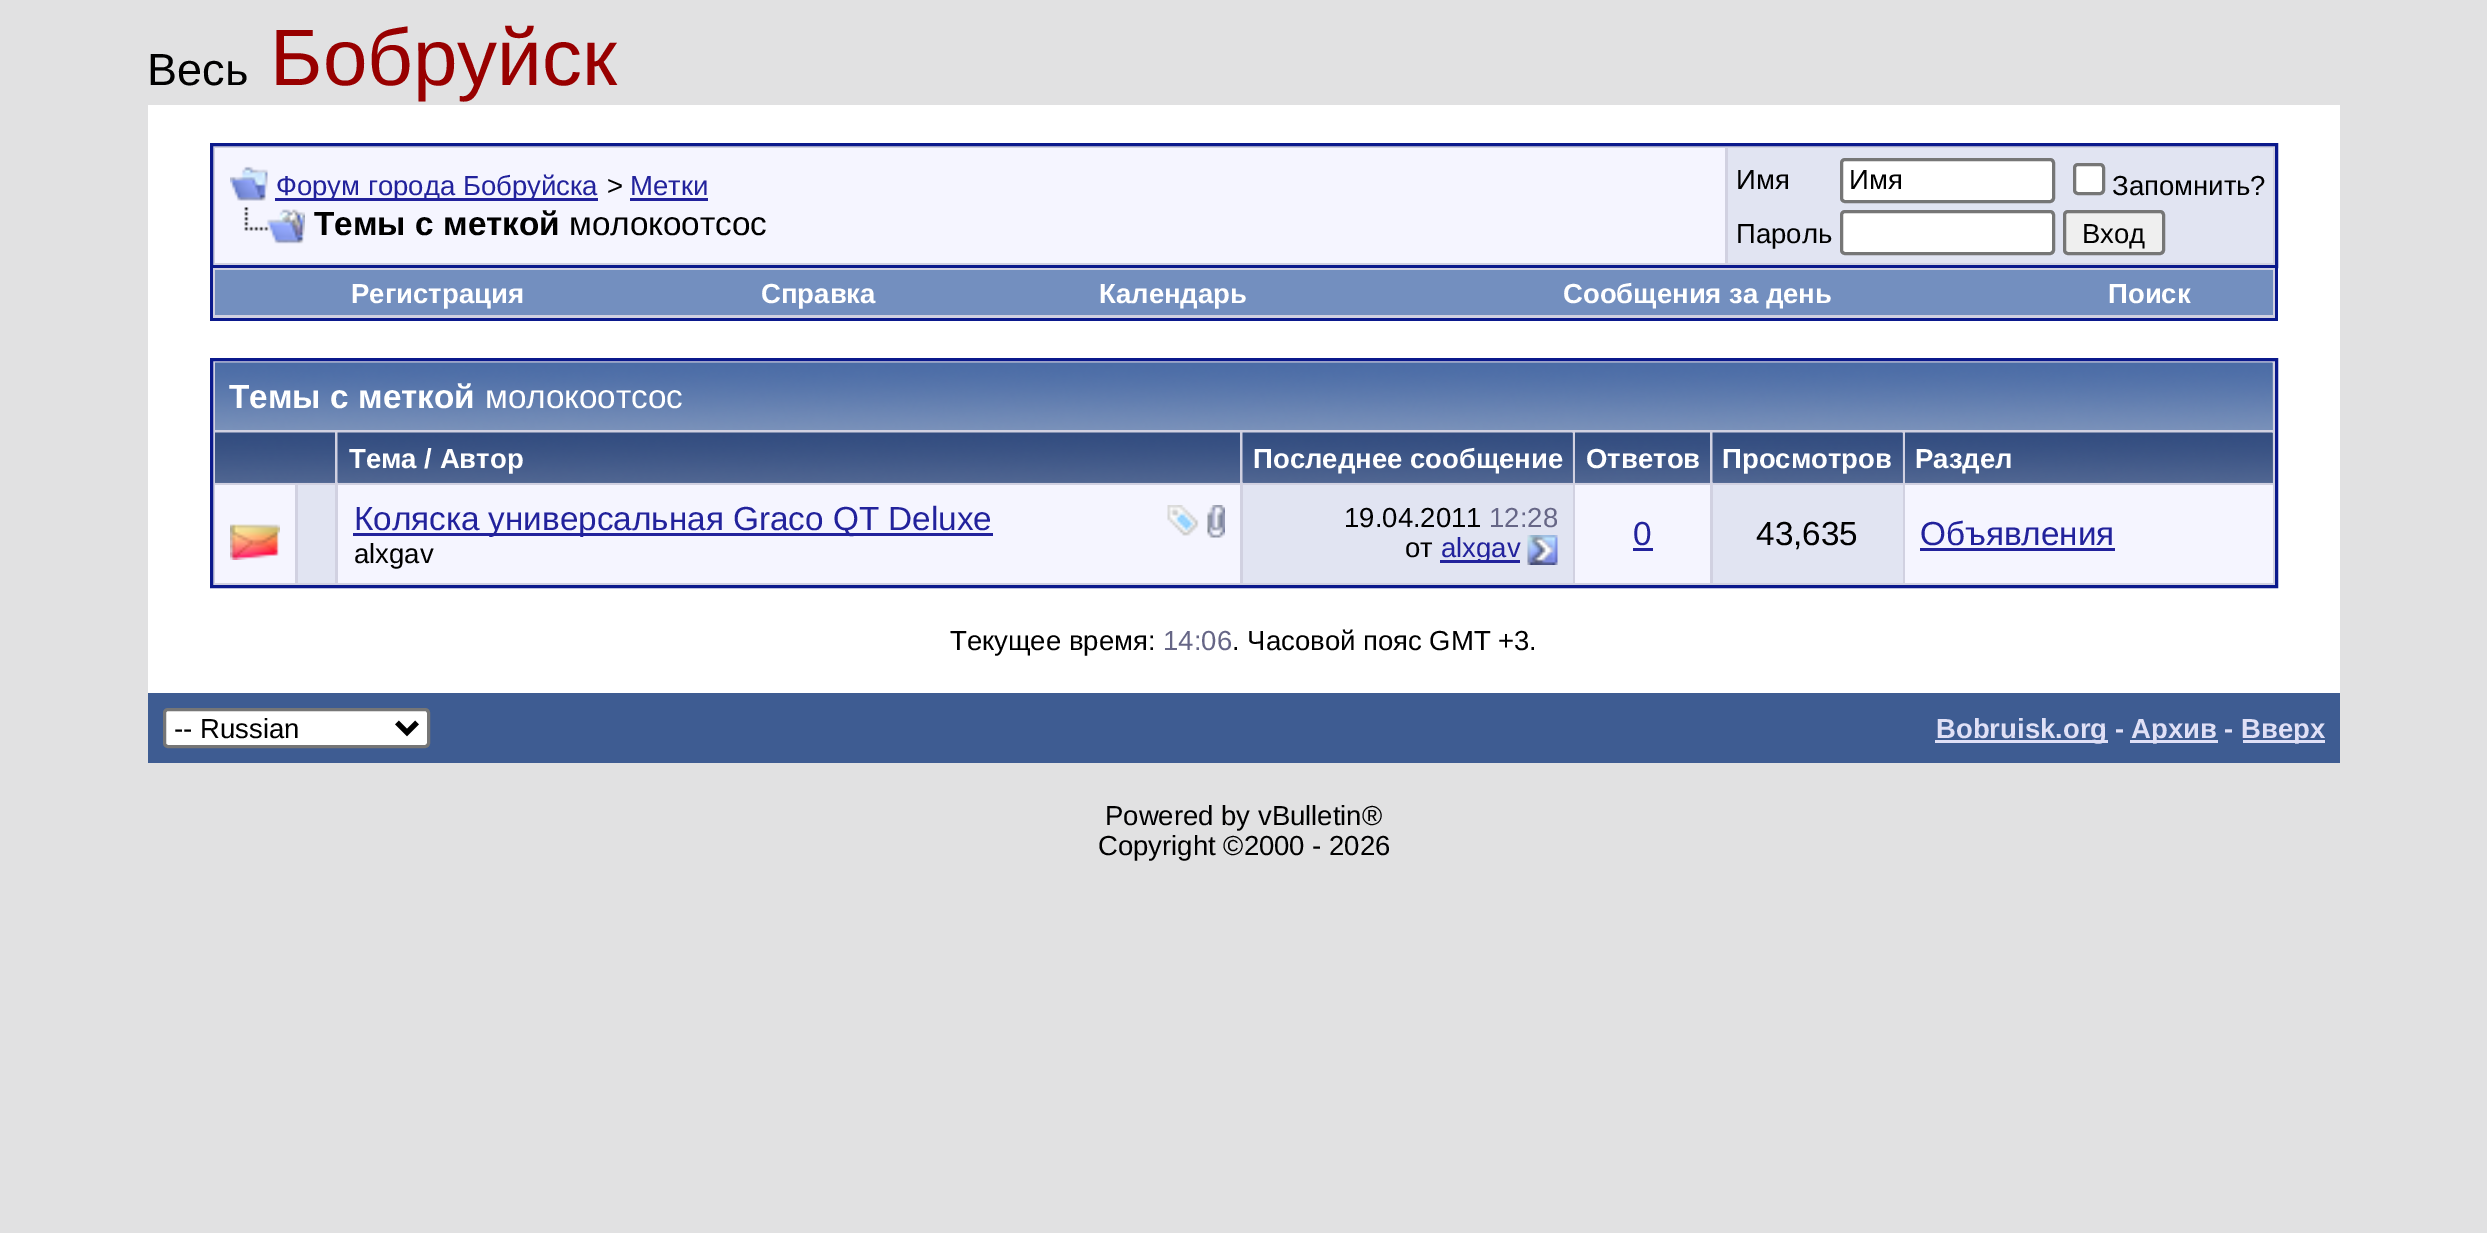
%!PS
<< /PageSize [2487 1233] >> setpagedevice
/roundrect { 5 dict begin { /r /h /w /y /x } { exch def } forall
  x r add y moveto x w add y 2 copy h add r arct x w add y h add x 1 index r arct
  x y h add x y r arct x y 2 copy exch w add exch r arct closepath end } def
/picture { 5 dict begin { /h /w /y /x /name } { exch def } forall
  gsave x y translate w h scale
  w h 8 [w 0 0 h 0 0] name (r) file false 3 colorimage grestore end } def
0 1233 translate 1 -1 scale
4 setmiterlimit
0.882 0.882 0.886 setrgbcolor
0 0 2487 1233 rectfill
/LiberationSans-Regular [45 0 0 -45 0 0] selectfont
0 setgray
147 85 moveto (Весь) show
/LiberationSans-Regular [80 0 0 -80 0 0] selectfont
0.596 0 0 setrgbcolor
270 85 moveto (Бобруйск) show
1 setgray
148 105 2192 588 rectfill
0.82 0.82 0.882 setrgbcolor
newpath 211.5 144.5 moveto 2276.5 144.5 lineto 2276.5 266.5 lineto 211.5 266.5 lineto closepath gsave fill grestore
0.043 0.098 0.549 setrgbcolor
3 setlinewidth
stroke
0.961 0.961 1 setrgbcolor
215 148 1510 115 rectfill
(img1.rgb) 230 166 38 35 picture
0.133 0.133 0.612 setrgbcolor
275 198 323 3 rectfill
/LiberationSans-Regular [27.5 0 0 -27.5 0 0] selectfont
276 195 moveto (Форум города Бобруйска) show
0 setgray
607 195 moveto (>) show
0.133 0.133 0.612 setrgbcolor
630 195 moveto (Метки) show
630 198 78 3 rectfill
(img2.rgb) 244 207 61 37 picture
/LiberationSans-Bold [33.3 0 0 -33.3 0 0] selectfont
0 setgray
314 235 moveto (Темы с меткой) show
/LiberationSans-Regular [33.3 0 0 -33.3 0 0] selectfont
569 235 moveto (молокоотсос) show
0.882 0.894 0.949 setrgbcolor
1728 148 545 115 rectfill
/LiberationSans-Regular [27.5 0 0 -27.5 0 0] selectfont
0 setgray
1736 189 moveto (Имя) show
1 setgray
1841.5 159.5 212 42 3.5 roundrect gsave fill grestore
0.463 setgray
stroke
0 setgray
1849 189 moveto (Имя) show
1 setgray
2074.5 164.5 29 29 3.5 roundrect gsave fill grestore
0.463 setgray
stroke
0 setgray
2112 195 moveto (Запомнить?) show
1736 243 moveto (Пароль) show
1 setgray
1841.5 211.5 212 42 3.5 roundrect gsave fill grestore
0.463 setgray
stroke
0.937 setgray
2064.5 211.5 99 42 3.5 roundrect gsave fill grestore
0.463 setgray
stroke
0 setgray
2082 243 moveto (Вход) show
0.82 0.82 0.882 setrgbcolor
213 268 2062 50 rectfill
0.043 0.098 0.549 setrgbcolor
2275 268 3 52 rectfill
210 318 2068 3 rectfill
210 268 3 52 rectfill
0.451 0.561 0.749 setrgbcolor
215 270 2058 45 rectfill
/LiberationSans-Bold [27.5 0 0 -27.5 0 0] selectfont
1 setgray
351 303 moveto (Регистрация) show
761 303 moveto (Справка) show
1099 303 moveto (Календарь) show
1563 303 moveto (Сообщения за день) show
2108 303 moveto (Поиск) show
0.82 0.82 0.882 setrgbcolor
newpath 211.5 359.5 moveto 2276.5 359.5 lineto 2276.5 586.5 lineto 211.5 586.5 lineto closepath gsave fill grestore
0.043 0.098 0.549 setrgbcolor
stroke
0.525 0.608 0.749 setrgbcolor
2272 363 1 67 rectfill
(img3.rgb) 215 362 2058 68 picture
/LiberationSans-Bold [33.3 0 0 -33.3 0 0] selectfont
1 setgray
229 408 moveto (Темы с меткой) show
/LiberationSans-Regular [33.3 0 0 -33.3 0 0] selectfont
485 408 moveto (молокоотсос) show
0.361 0.439 0.6 setrgbcolor
215 482 120 1 rectfill
(img4.rgb) 215 432 120 51 picture
338 482 902 1 rectfill
(img5.rgb) 337 432 903 51 picture
/LiberationSans-Bold [27.5 0 0 -27.5 0 0] selectfont
1 setgray
349 468 moveto (Тема / Автор) show
0.361 0.439 0.6 setrgbcolor
1243 433 330 50 rectfill
(img6.rgb) 1242 432 331 51 picture
1 setgray
1253 468 moveto (Последнее сообщение) show
0.361 0.439 0.6 setrgbcolor
1575 482 135 1 rectfill
(img7.rgb) 1575 432 135 51 picture
1 setgray
1586 468 moveto (Ответов) show
0.361 0.439 0.6 setrgbcolor
1713 433 190 50 rectfill
(img8.rgb) 1712 432 191 51 picture
1 setgray
1722 468 moveto (Просмотров) show
0.361 0.439 0.6 setrgbcolor
1905 433 368 50 rectfill
(img9.rgb) 1905 432 368 51 picture
1 setgray
1915 468 moveto (Раздел) show
0.961 0.961 1 setrgbcolor
215 485 80 98 rectfill
(img10.rgb) 230 524 50 36 picture
0.882 0.894 0.949 setrgbcolor
298 485 37 98 rectfill
0.961 0.961 1 setrgbcolor
338 485 902 98 rectfill
0.133 0.133 0.612 setrgbcolor
353 533 640 3 rectfill
/LiberationSans-Regular [33.3 0 0 -33.3 0 0] selectfont
354 530 moveto (Коляска универсальная Graco QT Deluxe) show
(img11.rgb) 1167 505 32 31 picture
(img12.rgb) 1207 505 18 33 picture
/LiberationSans-Regular [27.5 0 0 -27.5 0 0] selectfont
0 setgray
354 563 moveto (alxgav) show
0.882 0.894 0.949 setrgbcolor
1243 485 330 98 rectfill
0 setgray
1344 527 moveto (19.04.2011) show
0.4 0.4 0.525 setrgbcolor
1489 527 moveto (12:28) show
0 setgray
1405 557 moveto (от) show
0.133 0.133 0.612 setrgbcolor
1440 560 80 3 rectfill
1441 557 moveto (alxgav) show
(img13.rgb) 1527 535 31 30 picture
0.961 0.961 1 setrgbcolor
1575 485 135 98 rectfill
/LiberationSans-Regular [33.3 0 0 -33.3 0 0] selectfont
0.133 0.133 0.612 setrgbcolor
1633 545 moveto (0) show
1633 548 20 3 rectfill
0.882 0.894 0.949 setrgbcolor
1713 485 190 98 rectfill
0 setgray
1756 545 moveto (43,635) show
0.961 0.961 1 setrgbcolor
1905 485 368 98 rectfill
0.133 0.133 0.612 setrgbcolor
1920 545 moveto (Объявления) show
1920 548 195 3 rectfill
/LiberationSans-Regular [27.5 0 0 -27.5 0 0] selectfont
0 setgray
950 650 moveto (Текущее время:) show
0.4 0.4 0.525 setrgbcolor
1163 650 moveto (14:06) show
0 setgray
1232 650 moveto (. Часовой пояс GMT +3.) show
0.243 0.361 0.573 setrgbcolor
148 693 2192 70 rectfill
1 setgray
164.5 709.5 264 37 3.5 roundrect gsave fill grestore
0.463 setgray
stroke
0 setgray
5 setlinewidth
newpath 397 722.5 moveto 407 732.5 lineto 417 722.5 lineto stroke
174 738 moveto (-- Russian) show
0.878 0.878 0.965 setrgbcolor
1935 740 173 3 rectfill
/LiberationSans-Bold [27.5 0 0 -27.5 0 0] selectfont
1936 738 moveto (Bobruisk.org -) show
2130 740 88 3 rectfill
2131 738 moveto (Архив -) show
2243 740 82 3 rectfill
2241 738 moveto (Вверх) show
/LiberationSans-Regular [27.5 0 0 -27.5 0 0] selectfont
0 setgray
1105 825 moveto (Powered by vBulletin®) show
1098 855 moveto (Copyright ©2000 - 2026) show
showpage
